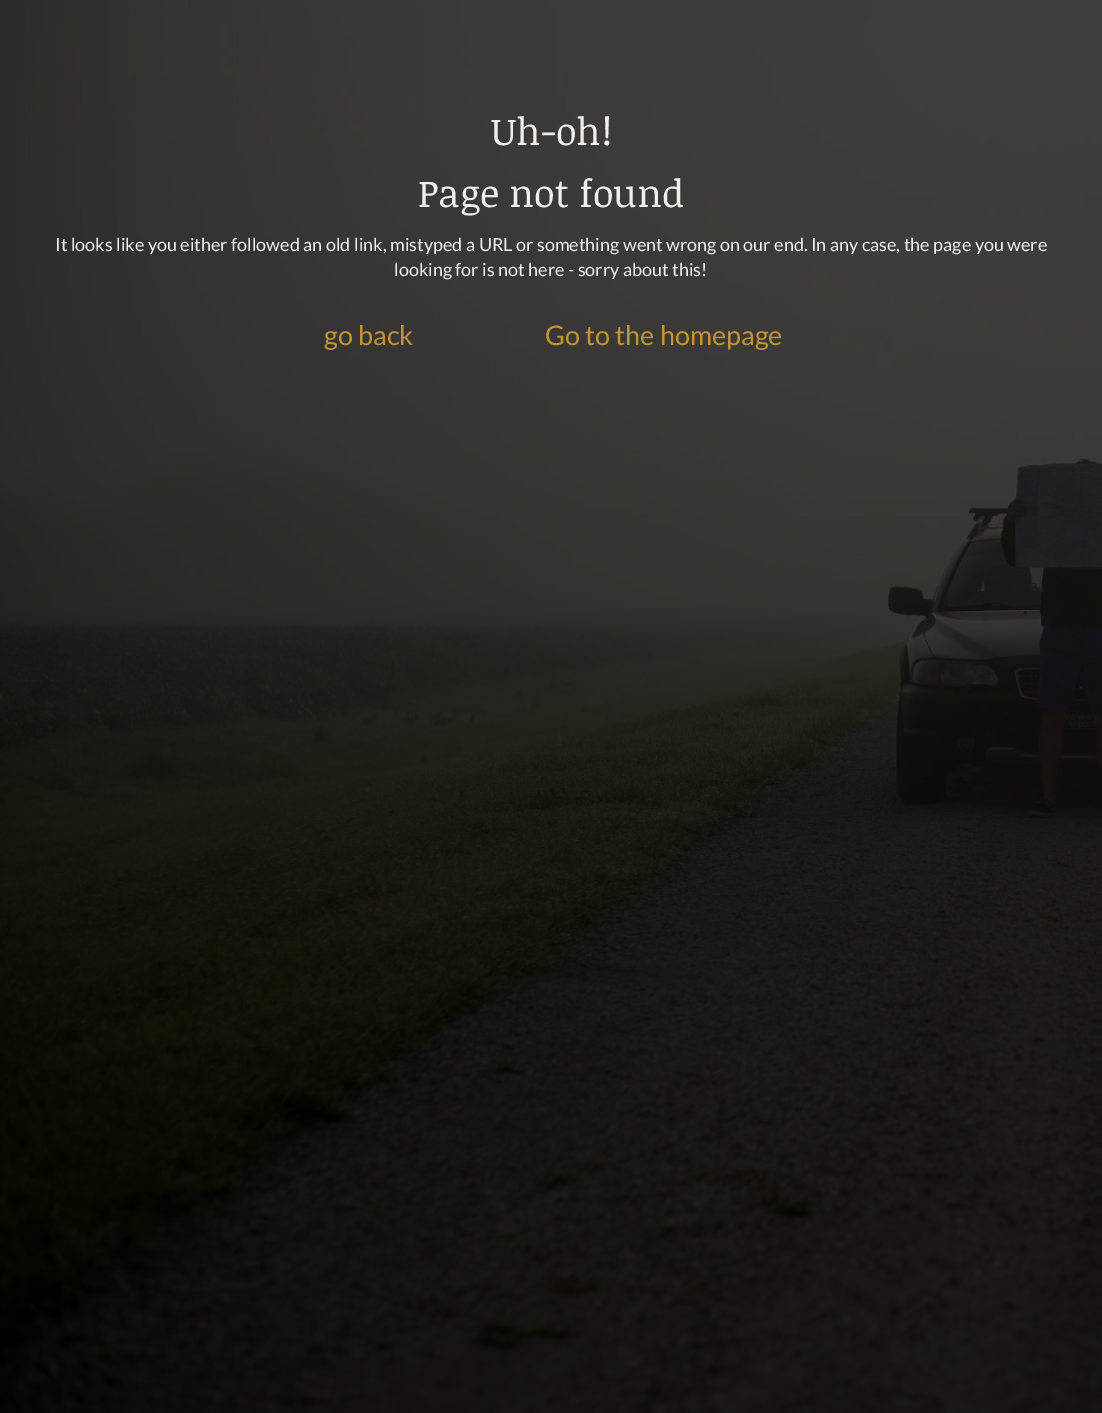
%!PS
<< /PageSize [1102 1413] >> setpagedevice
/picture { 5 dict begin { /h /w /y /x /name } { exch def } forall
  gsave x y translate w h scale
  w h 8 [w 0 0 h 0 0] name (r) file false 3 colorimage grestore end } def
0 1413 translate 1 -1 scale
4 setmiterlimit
1 setgray
0 0 1102 1413 rectfill
(img1.rgb) 0 0 1102 1413 picture
/NoticiaText-Regular [38 0 0 -38 0 0] selectfont
0.937 setgray
491 145 moveto (Uh-oh!) show
418 207 moveto (Page not found) show
/Lato-Regular [18 0 0 -18 0 0] selectfont
55 251 moveto (It looks like you either followed an old link, mistyped a URL or something went wrong on our end. In any case, the page you were) show
394 276 moveto (looking for is not here - sorry about this!) show
/Lato-Regular [27 0 0 -27 0 0] selectfont
0.757 0.58 0.204 setrgbcolor
324 345 moveto (go back) show
545 345 moveto (Go to the homepage) show
showpage
